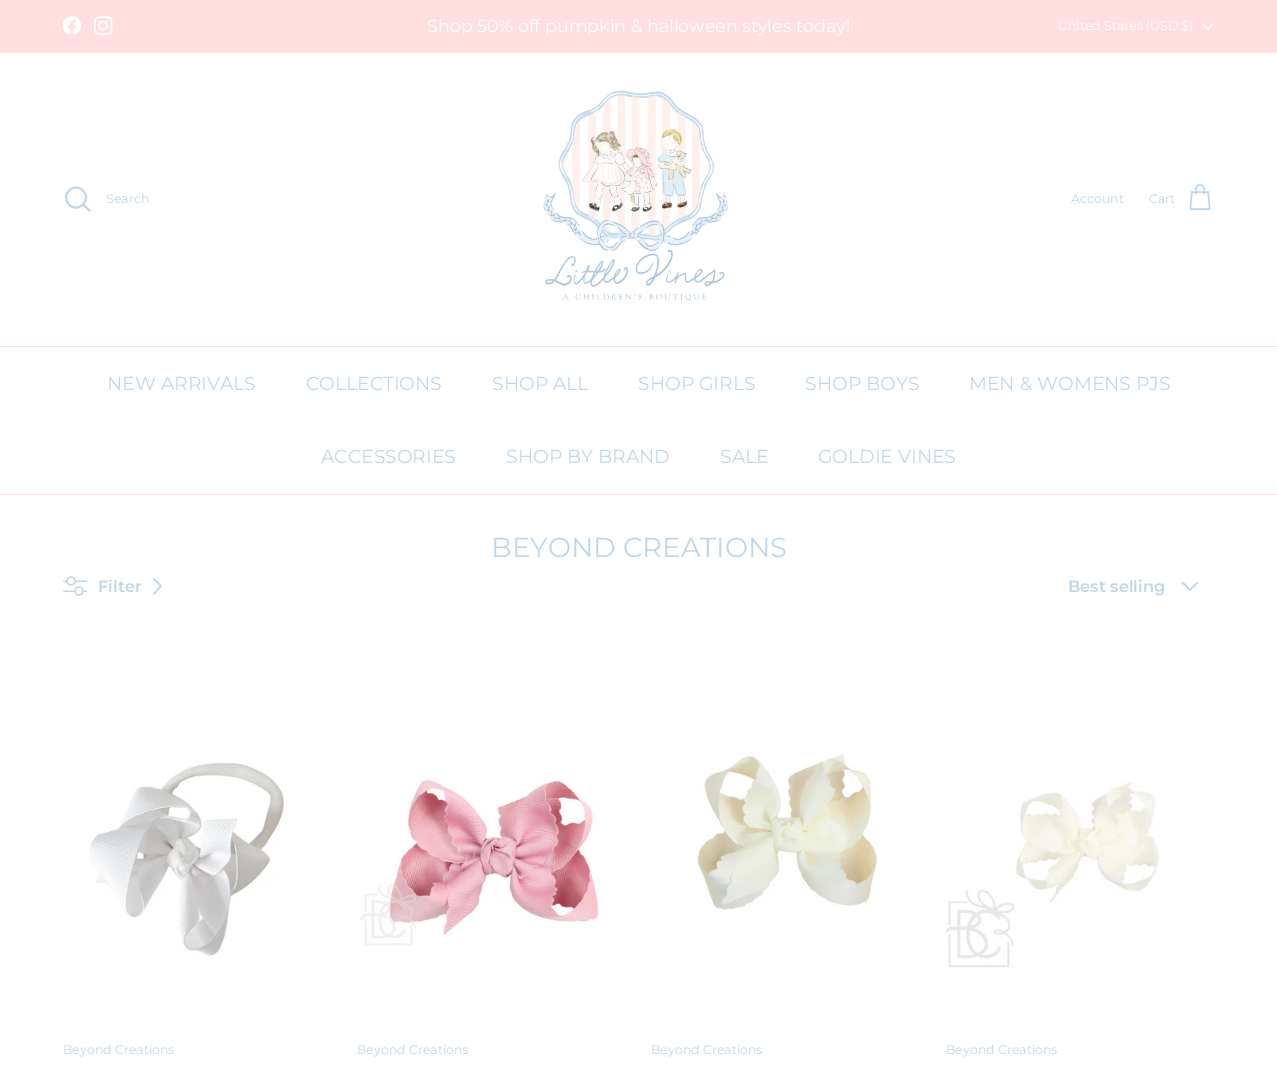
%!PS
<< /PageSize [1277 1068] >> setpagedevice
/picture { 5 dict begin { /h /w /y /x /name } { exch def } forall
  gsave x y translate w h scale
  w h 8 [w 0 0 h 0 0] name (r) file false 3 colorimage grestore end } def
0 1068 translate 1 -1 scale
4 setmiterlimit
1 setgray
0 0 1277 1068 rectfill
1 0.875 0.875 setrgbcolor
0 0 1277 53 rectfill
(img1.rgb) 63 16 18 19 picture
(img2.rgb) 94 16 19 19 picture
/Montserrat-Regular [17.5 0 0 -17.5 0 0] selectfont
1 setgray
427 32 moveto (Shop 50% off pumpkin & halloween styles today!) show
/Montserrat-Regular [12.5 0 0 -12.5 0 0] selectfont
1058 30 moveto (United States \(USD $\)) show
1.2 setlinewidth
newpath 1212.5 24 moveto 1208 29 lineto 1203 24 lineto stroke
1 0.875 0.875 setrgbcolor
0 346 1277 1 rectfill
0.753 0.843 0.918 setrgbcolor
1.9 setlinewidth
newpath 76 197.5 10 0 360 arc closepath stroke
106 203 moveto (Search) show
2 setlinecap
newpath 83.5 205 moveto 89.5 210.5 lineto stroke
(img3.rgb) 543 90 185 211 picture
1071 203 moveto (Account) show
1149 203 moveto (Cart) show
(img4.rgb) 1189 184 22 27 picture
1 0.875 0.875 setrgbcolor
0 494 1277 1 rectfill
/Montserrat-Regular [18.75 0 0 -18.75 0 0] selectfont
0.753 0.843 0.918 setrgbcolor
107 390 moveto (NEW ARRIVALS) show
306 390 moveto (COLLECTIONS) show
492 390 moveto (SHOP ALL) show
638 390 moveto (SHOP GIRLS) show
805 390 moveto (SHOP BOYS) show
969 390 moveto (MEN & WOMENS PJS) show
321 463 moveto (ACCESSORIES) show
506 463 moveto (SHOP BY BRAND) show
720 463 moveto (SALE) show
818 463 moveto (GOLDIE VINES) show
/Montserrat-Regular [27.5 0 0 -27.5 0 0] selectfont
491 557 moveto (BEYOND CREATIONS) show
(img5.rgb) 63 576 24 20 picture
/Montserrat-SemiBold [16.25 0 0 -16.25 0 0] selectfont
98 592 moveto (Filter) show
1.6 setlinewidth
1 setlinecap
1 setlinejoin
newpath 154 594 moveto 161 586 lineto 154 579 lineto stroke
1068 592 moveto (Best selling) show
newpath 1182.5 582.5 moveto 1190 590 lineto 1197.5 582.5 lineto stroke
(img6.rgb) 89 762 195 195 picture
/Montserrat-Regular [12.5 0 0 -12.5 0 0] selectfont
63 1054 moveto (Beyond Creations) show
(img7.rgb) 360 779 241 167 picture
357 1054 moveto (Beyond Creations) show
(img8.rgb) 697 753 181 157 picture
651 1054 moveto (Beyond Creations) show
(img9.rgb) 946 782 214 186 picture
946 1054 moveto (Beyond Creations) show
showpage
